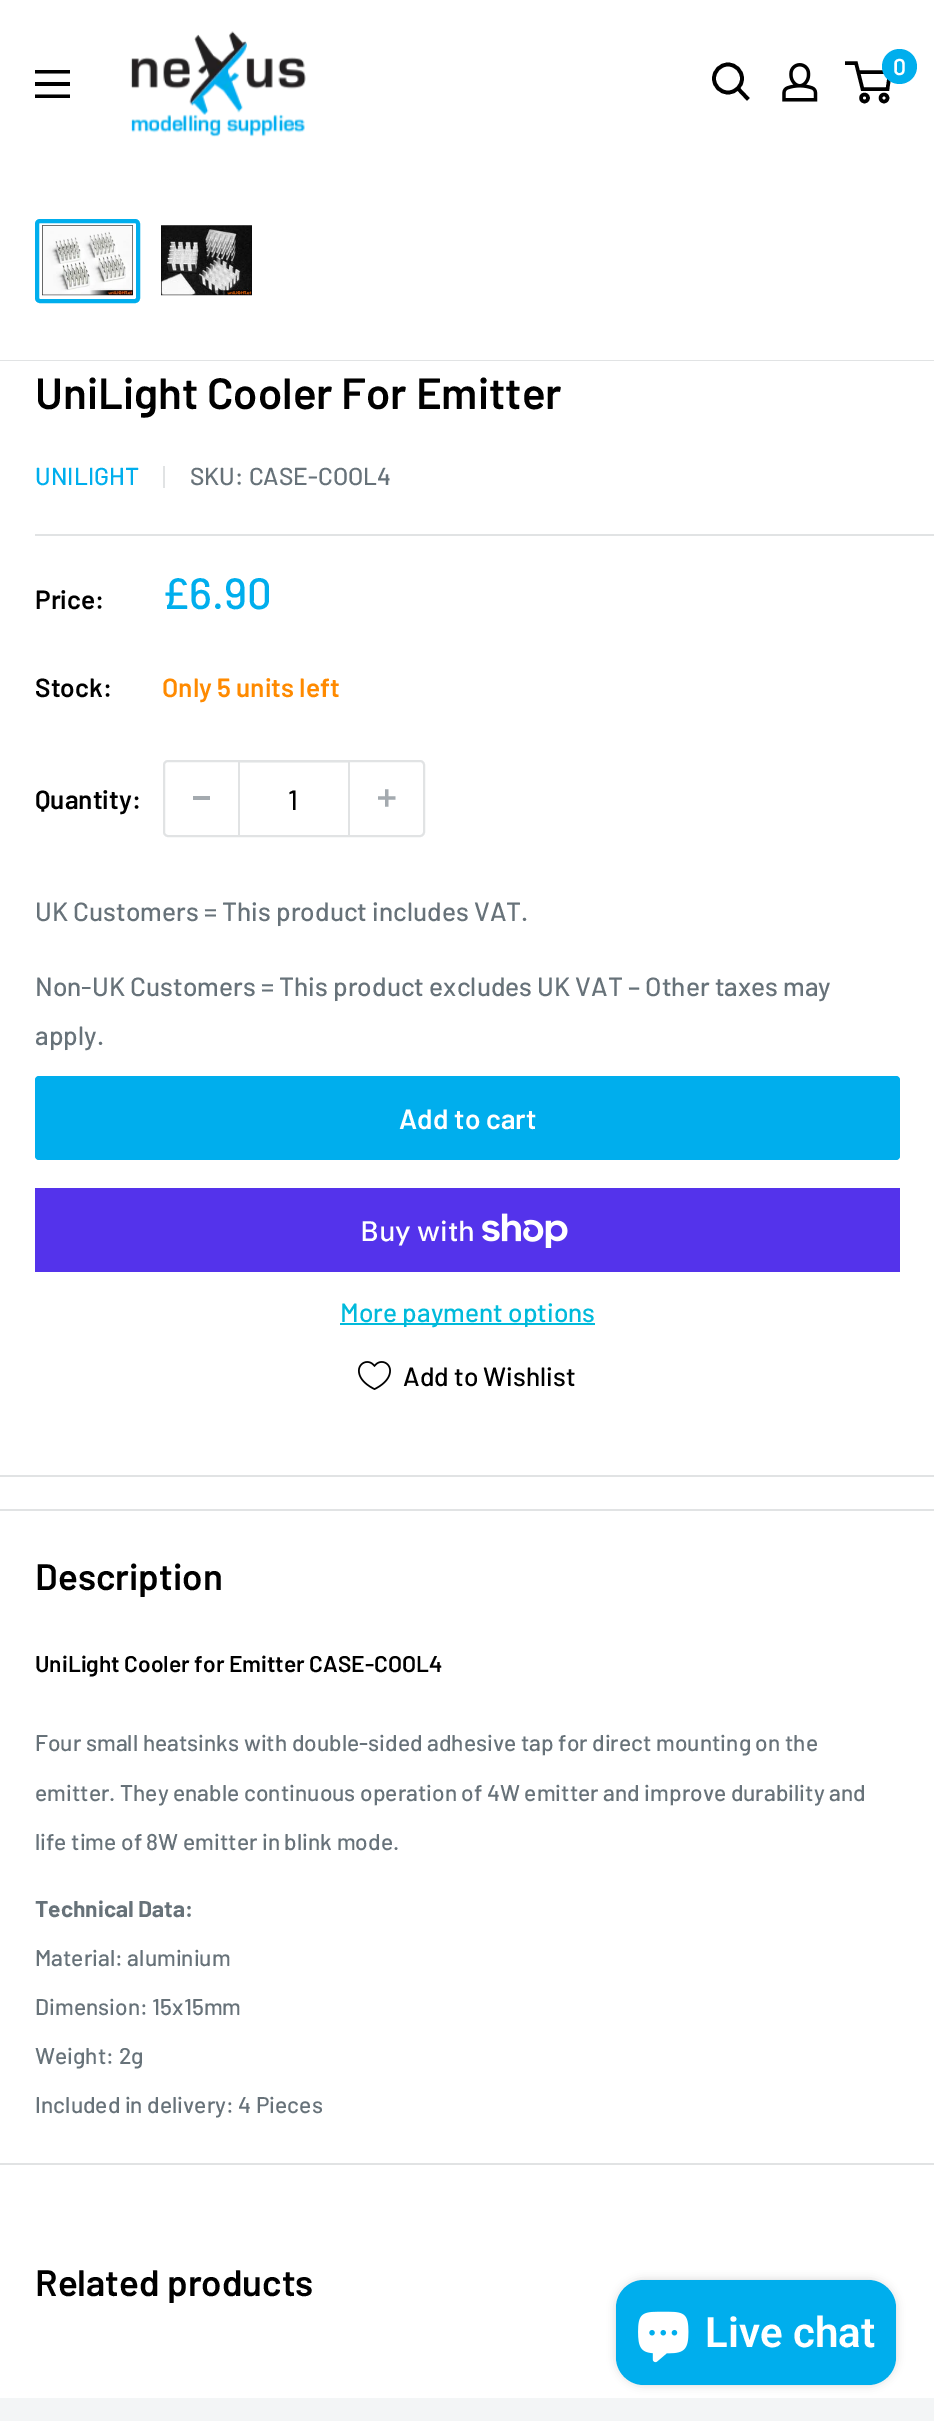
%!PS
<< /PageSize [934 2421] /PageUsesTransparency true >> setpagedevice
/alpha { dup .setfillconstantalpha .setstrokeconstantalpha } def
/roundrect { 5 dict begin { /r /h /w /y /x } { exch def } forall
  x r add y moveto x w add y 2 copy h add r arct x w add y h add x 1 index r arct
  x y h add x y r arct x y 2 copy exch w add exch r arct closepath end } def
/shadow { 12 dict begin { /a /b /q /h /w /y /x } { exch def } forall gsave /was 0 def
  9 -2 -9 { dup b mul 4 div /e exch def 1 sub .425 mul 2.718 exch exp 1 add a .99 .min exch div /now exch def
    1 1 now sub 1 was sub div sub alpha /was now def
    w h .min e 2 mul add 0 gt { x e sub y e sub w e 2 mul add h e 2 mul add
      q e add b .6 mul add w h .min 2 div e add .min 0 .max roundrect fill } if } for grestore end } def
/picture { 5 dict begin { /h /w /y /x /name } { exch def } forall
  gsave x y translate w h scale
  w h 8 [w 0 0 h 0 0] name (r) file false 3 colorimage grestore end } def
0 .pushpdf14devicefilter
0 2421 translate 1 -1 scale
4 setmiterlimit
1 setgray
0 0 934 2421 rectfill
(img1.rgb) 130 31 176 106 picture
0 setgray
3.7 setlinewidth
2 setlinecap
newpath 747 98 moveto 738 88.5 lineto stroke
0 setlinecap
newpath 728 78.5 14 0 360 arc closepath stroke
(img2.rgb) 782 63 36 39 picture
3.5 setlinewidth
newpath 864.5 98 3.5 0 360 arc closepath stroke
newpath 884 98 3.5 0 360 arc closepath stroke
newpath 858 72 moveto 890 72 lineto 887.5 89 lineto 862.5 89 lineto 856 63 lineto 845 63 lineto stroke
0 0.682 0.929 setrgbcolor
newpath 899.5 66.5 17.5 0 360 arc closepath fill
/Barlow-SemiBold [23 0 0 -23 0 0] selectfont
1 setgray
893 75 moveto (0) show
0 setgray
newpath 35 94.5 moveto 70 94.5 lineto 70 98 lineto 35 98 lineto closepath 35 70 moveto 70 70 lineto 70 73.5 lineto 35 73.5 lineto closepath 35 82 moveto 70 82 lineto 70 86 lineto 35 86 lineto closepath eofill
0.882 0.89 0.894 setrgbcolor
0 360 934 1 rectfill
0 0.682 0.929 setrgbcolor
4 setlinewidth
37 221 101 80 3 roundrect stroke
(img3.rgb) 42 225 91 71 picture
(img4.rgb) 161 225 91 71 picture
0.882 0.89 0.894 setrgbcolor
0 1475 934 2 rectfill
/Barlow-SemiBold [43.75 0 0 -43.75 0 0] selectfont
0 setgray
35 409 moveto (UniLight Cooler For Emitter) show
/Barlow-Medium [24.5 0 0 -24.5 0 0] selectfont
0 0.682 0.929 setrgbcolor
35 485 moveto (UNILIGHT) show
0.882 0.89 0.894 setrgbcolor
163 466 2 22 rectfill
0.404 0.447 0.475 setrgbcolor
190 485 moveto (SKU: CASE-COOL4) show
0.882 0.89 0.894 setrgbcolor
35 534 899 2 rectfill
/Barlow-SemiBold [26.25 0 0 -26.25 0 0] selectfont
0 setgray
35 609 moveto (Price:) show
/Barlow-Medium [43.75 0 0 -43.75 0 0] selectfont
0 0.682 0.929 setrgbcolor
162 609 moveto (£6.90) show
/Barlow-SemiBold [26.25 0 0 -26.25 0 0] selectfont
0 setgray
35 697 moveto (Stock:) show
1 0.541 0 setrgbcolor
162 697 moveto (Only 5 units left) show
0 setgray
35 809 moveto (Quantity:) show
0.882 0.89 0.894 setrgbcolor
2 setlinewidth
164 761 260 75 4 roundrect stroke
0.643 0.667 0.686 setrgbcolor
193 796 17 4 rectfill
0.4 alpha
0.882 0.89 0.894 setrgbcolor
240 762 108 1 rectfill
1 alpha
348 761 2 74 rectfill
238 761 2 74 rectfill
/Barlow-Medium [28 0 0 -28 0 0] selectfont
0 setgray
288 810 moveto (1) show
(img5.rgb) 378 789 18 18 picture
/Barlow-Medium [26.25 0 0 -26.25 0 0] selectfont
0.404 0.447 0.475 setrgbcolor
35 921 moveto (UK Customers = This product includes VAT.) show
35 996 moveto (Non-UK Customers = This product excludes UK VAT – Other taxes may) show
35 1045 moveto (apply.) show
0 0.682 0.929 setrgbcolor
35 1076 865 84 4 roundrect fill
/Barlow-SemiBold [28 0 0 -28 0 0] selectfont
1 setgray
399 1129 moveto (Add to cart) show
0.329 0.2 0.922 setrgbcolor
35 1188 865 84 rectfill
/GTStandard-Medium [28 0 0 -28 0 0] selectfont
1 setgray
360 1241 moveto (Buy with) show
(img6.rgb) 482 1213 86 35 picture
0 0.729 0.859 setrgbcolor
340 1323 255 2 rectfill
/Barlow-Medium [26.25 0 0 -26.25 0 0] selectfont
340 1322 moveto (More payment options) show
(img7.rgb) 358 1361 33 29 picture
0 setgray
403 1386 moveto (Add to Wishlist) show
0.882 0.89 0.894 setrgbcolor
0 1509 934 2 rectfill
0 2163 934 2 rectfill
/Barlow-SemiBold [36.75 0 0 -36.75 0 0] selectfont
0 setgray
35 1590 moveto (Description) show
/Barlow-SemiBold [22.75 0 0 -22.75 0 0] selectfont
35 1672 moveto (UniLight Cooler for Emitter CASE-COOL4) show
/Barlow-Medium [22.75 0 0 -22.75 0 0] selectfont
0.404 0.447 0.475 setrgbcolor
35 1751 moveto (Four small heatsinks with double-sided adhesive tap for direct mounting on the) show
35 1801 moveto (emitter. They enable continuous operation of 4W emitter and improve durability and) show
35 1850 moveto (life time of 8W emitter in blink mode.) show
/Barlow-Bold [22.75 0 0 -22.75 0 0] selectfont
35 1917 moveto (Technical Data:) show
/Barlow-Medium [22.75 0 0 -22.75 0 0] selectfont
35 1966 moveto (Material: aluminium) show
35 2015 moveto (Dimension: 15x15mm) show
35 2064 moveto (Weight: 2g) show
35 2113 moveto (Included in delivery: 4 Pieces) show
/Barlow-SemiBold [36.75 0 0 -36.75 0 0] selectfont
0 setgray
35 2296 moveto (Related products) show
0.953 0.961 0.965 setrgbcolor
0 2398 934 23 rectfill
0 setgray
616 2280 280 105 28 4.5 0.15 shadow
0 0.682 0.929 setrgbcolor
616 2280 280 105 28 roundrect fill
(img8.rgb) 638 2311 51 52 picture
/Roboto-SemiBold [42 0 0 -42 0 0] selectfont
1 setgray
705 2347 moveto (Live chat) show
.poppdf14devicefilter showpage
